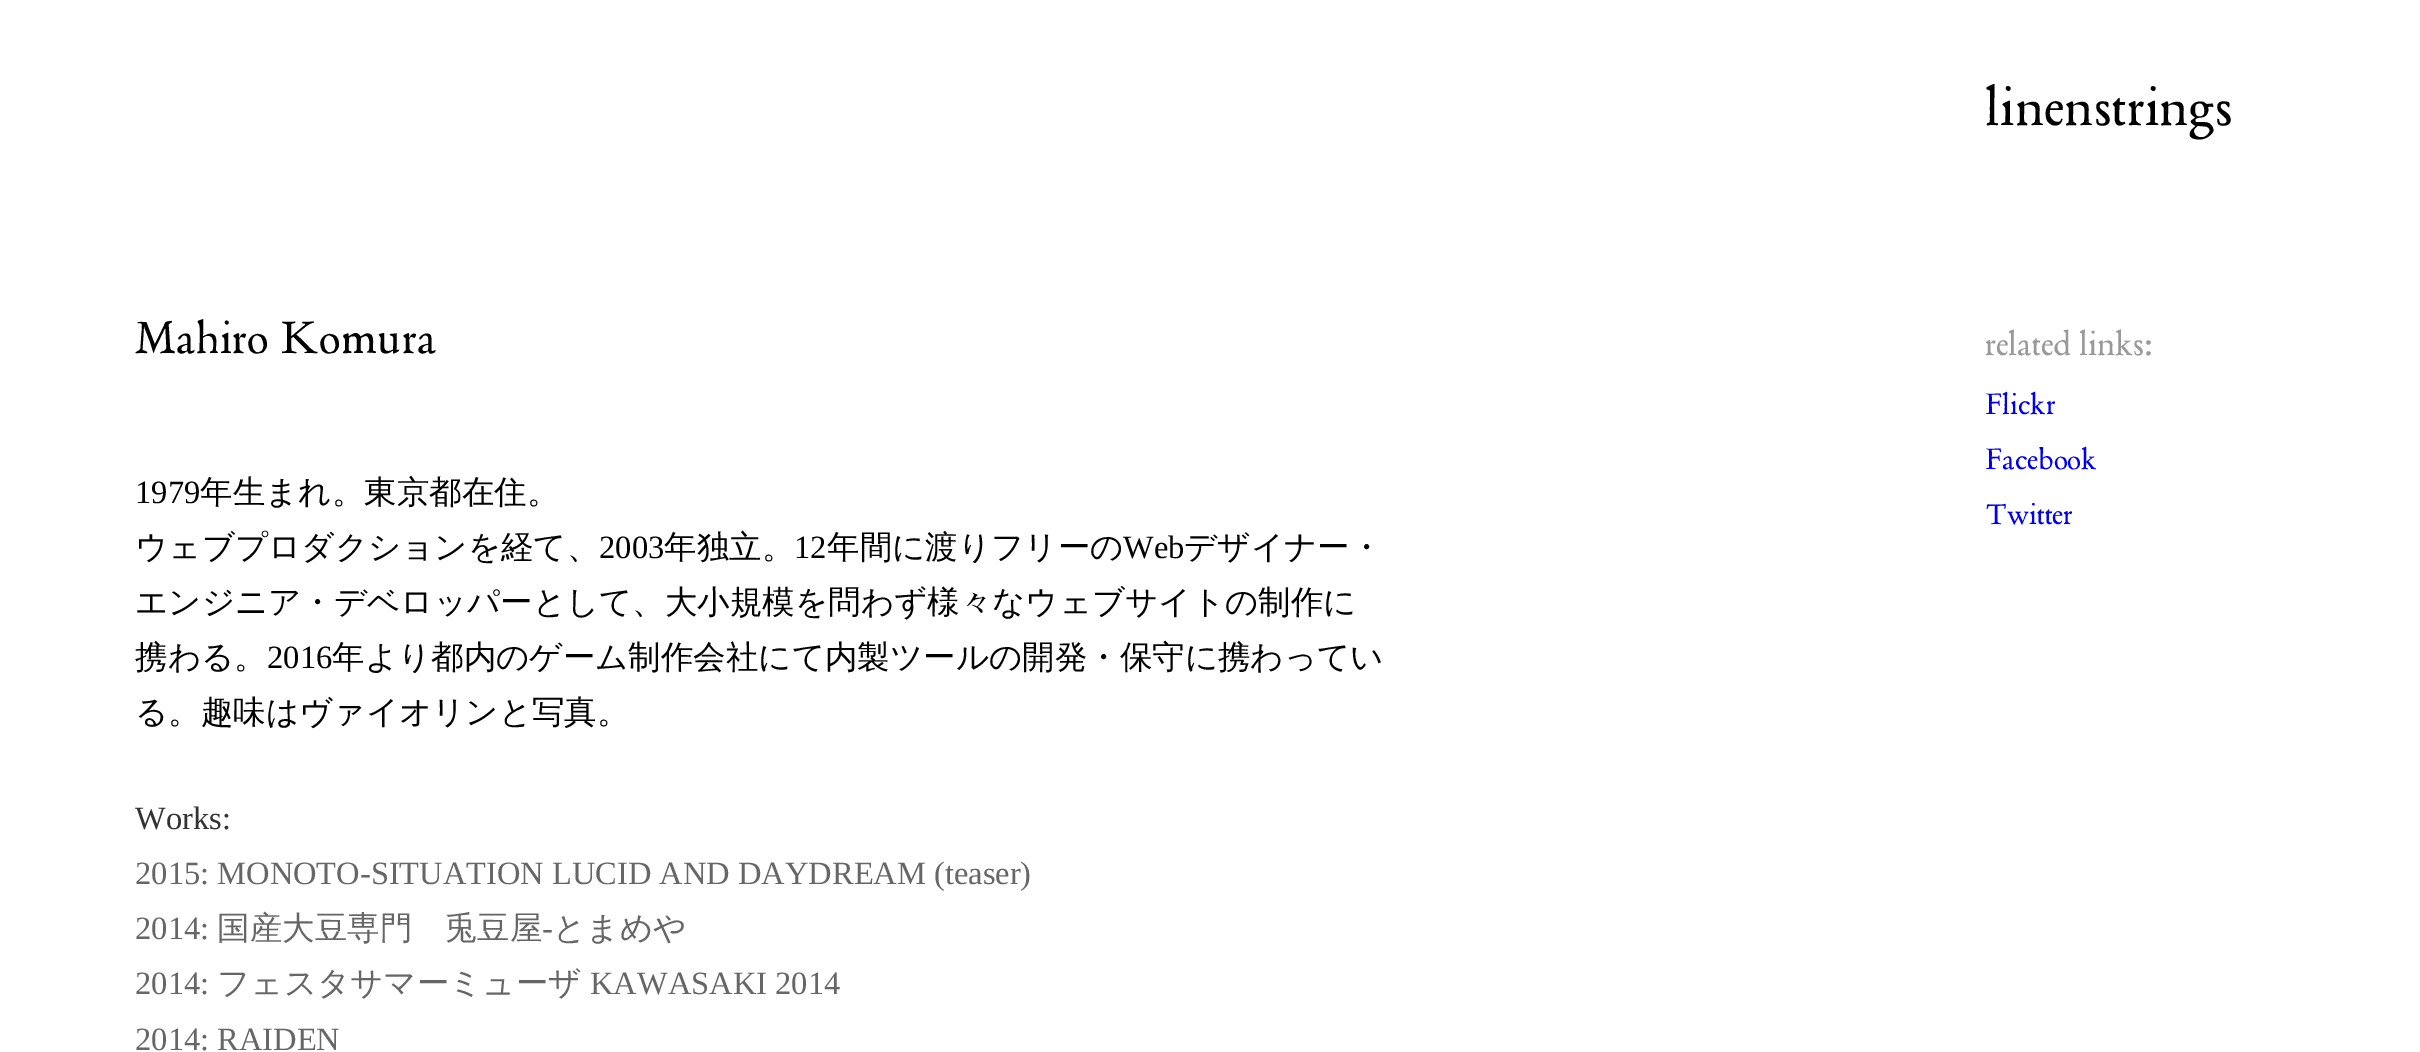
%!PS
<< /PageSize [2420 1052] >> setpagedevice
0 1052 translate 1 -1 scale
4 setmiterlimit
1 setgray
0 0 2420 1052 rectfill
/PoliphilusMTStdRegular-Regular [60 0 0 -60 0 0] selectfont
0 setgray
1985 125 moveto 0.5 0 (linenstrings) ashow
/PoliphilusMTStdRegular-Regular [50 0 0 -50 0 0] selectfont
135 353 moveto 0.4 0 (Mahiro Komura) ashow
/LiberationSerif-Regular [32.5 0 0 -32.5 0 0] selectfont
135 503 moveto (1979) show
/WenQuanYiZenHei-Medium [32.5 0 0 -32.5 0 0] selectfont
200 503 moveto (年生まれ。東京都在住。) show
135 558 moveto (ウェブプロダクションを経て、) show
/LiberationSerif-Regular [32.5 0 0 -32.5 0 0] selectfont
599 558 moveto (2003) show
/WenQuanYiZenHei-Medium [32.5 0 0 -32.5 0 0] selectfont
664 558 moveto (年独立。) show
/LiberationSerif-Regular [32.5 0 0 -32.5 0 0] selectfont
794 558 moveto (12) show
/WenQuanYiZenHei-Medium [32.5 0 0 -32.5 0 0] selectfont
827 558 moveto (年間に渡りフリーの) show
/LiberationSerif-Regular [32.5 0 0 -32.5 0 0] selectfont
1123 558 moveto (Web) show
/WenQuanYiZenHei-Medium [32.5 0 0 -32.5 0 0] selectfont
1184 558 moveto (デザイナー・) show
135 613 moveto (エンジニア・デベロッパーとして、大小規模を問わず様々なウェブサイトの制作に) show
135 668 moveto (携わる。) show
/LiberationSerif-Regular [32.5 0 0 -32.5 0 0] selectfont
267 668 moveto (2016) show
/WenQuanYiZenHei-Medium [32.5 0 0 -32.5 0 0] selectfont
332 668 moveto (年より都内のゲーム制作会社にて内製ツールの開発・保守に携わってい) show
135 723 moveto (る。趣味はヴァイオリンと写真。) show
/LiberationSerif-Regular [32.5 0 0 -32.5 0 0] selectfont
0.2 setgray
135 829 moveto (Works:) show
0.4 setgray
135 884 moveto (2015: MONOTO-SITUATION LUCID AND DAYDREAM \(teaser\)) show
135 939 moveto (2014:) show
/WenQuanYiZenHei-Medium [32.5 0 0 -32.5 0 0] selectfont
217 939 moveto (国産大豆専門　兎豆屋) show
/LiberationSerif-Regular [32.5 0 0 -32.5 0 0] selectfont
542 939 moveto (-) show
/WenQuanYiZenHei-Medium [32.5 0 0 -32.5 0 0] selectfont
553 939 moveto (とまめや) show
/LiberationSerif-Regular [32.5 0 0 -32.5 0 0] selectfont
135 994 moveto (2014:) show
/WenQuanYiZenHei-Medium [32.5 0 0 -32.5 0 0] selectfont
217 994 moveto (フェスタサマーミューザ) show
/LiberationSerif-Regular [32.5 0 0 -32.5 0 0] selectfont
590 994 moveto (KAWASAKI 2014) show
135 1050 moveto (2014: RAIDEN) show
/PoliphilusMTStdRegular-Regular [37.5 0 0 -37.5 0 0] selectfont
0.6 setgray
1985 355 moveto (related links:) show
/PoliphilusMTStdRegular-Regular [32.5 0 0 -32.5 0 0] selectfont
0 0 0.933 setrgbcolor
1985 414 moveto (Flickr) show
1985 469 moveto (Facebook) show
1985 524 moveto (Twitter) show
showpage
